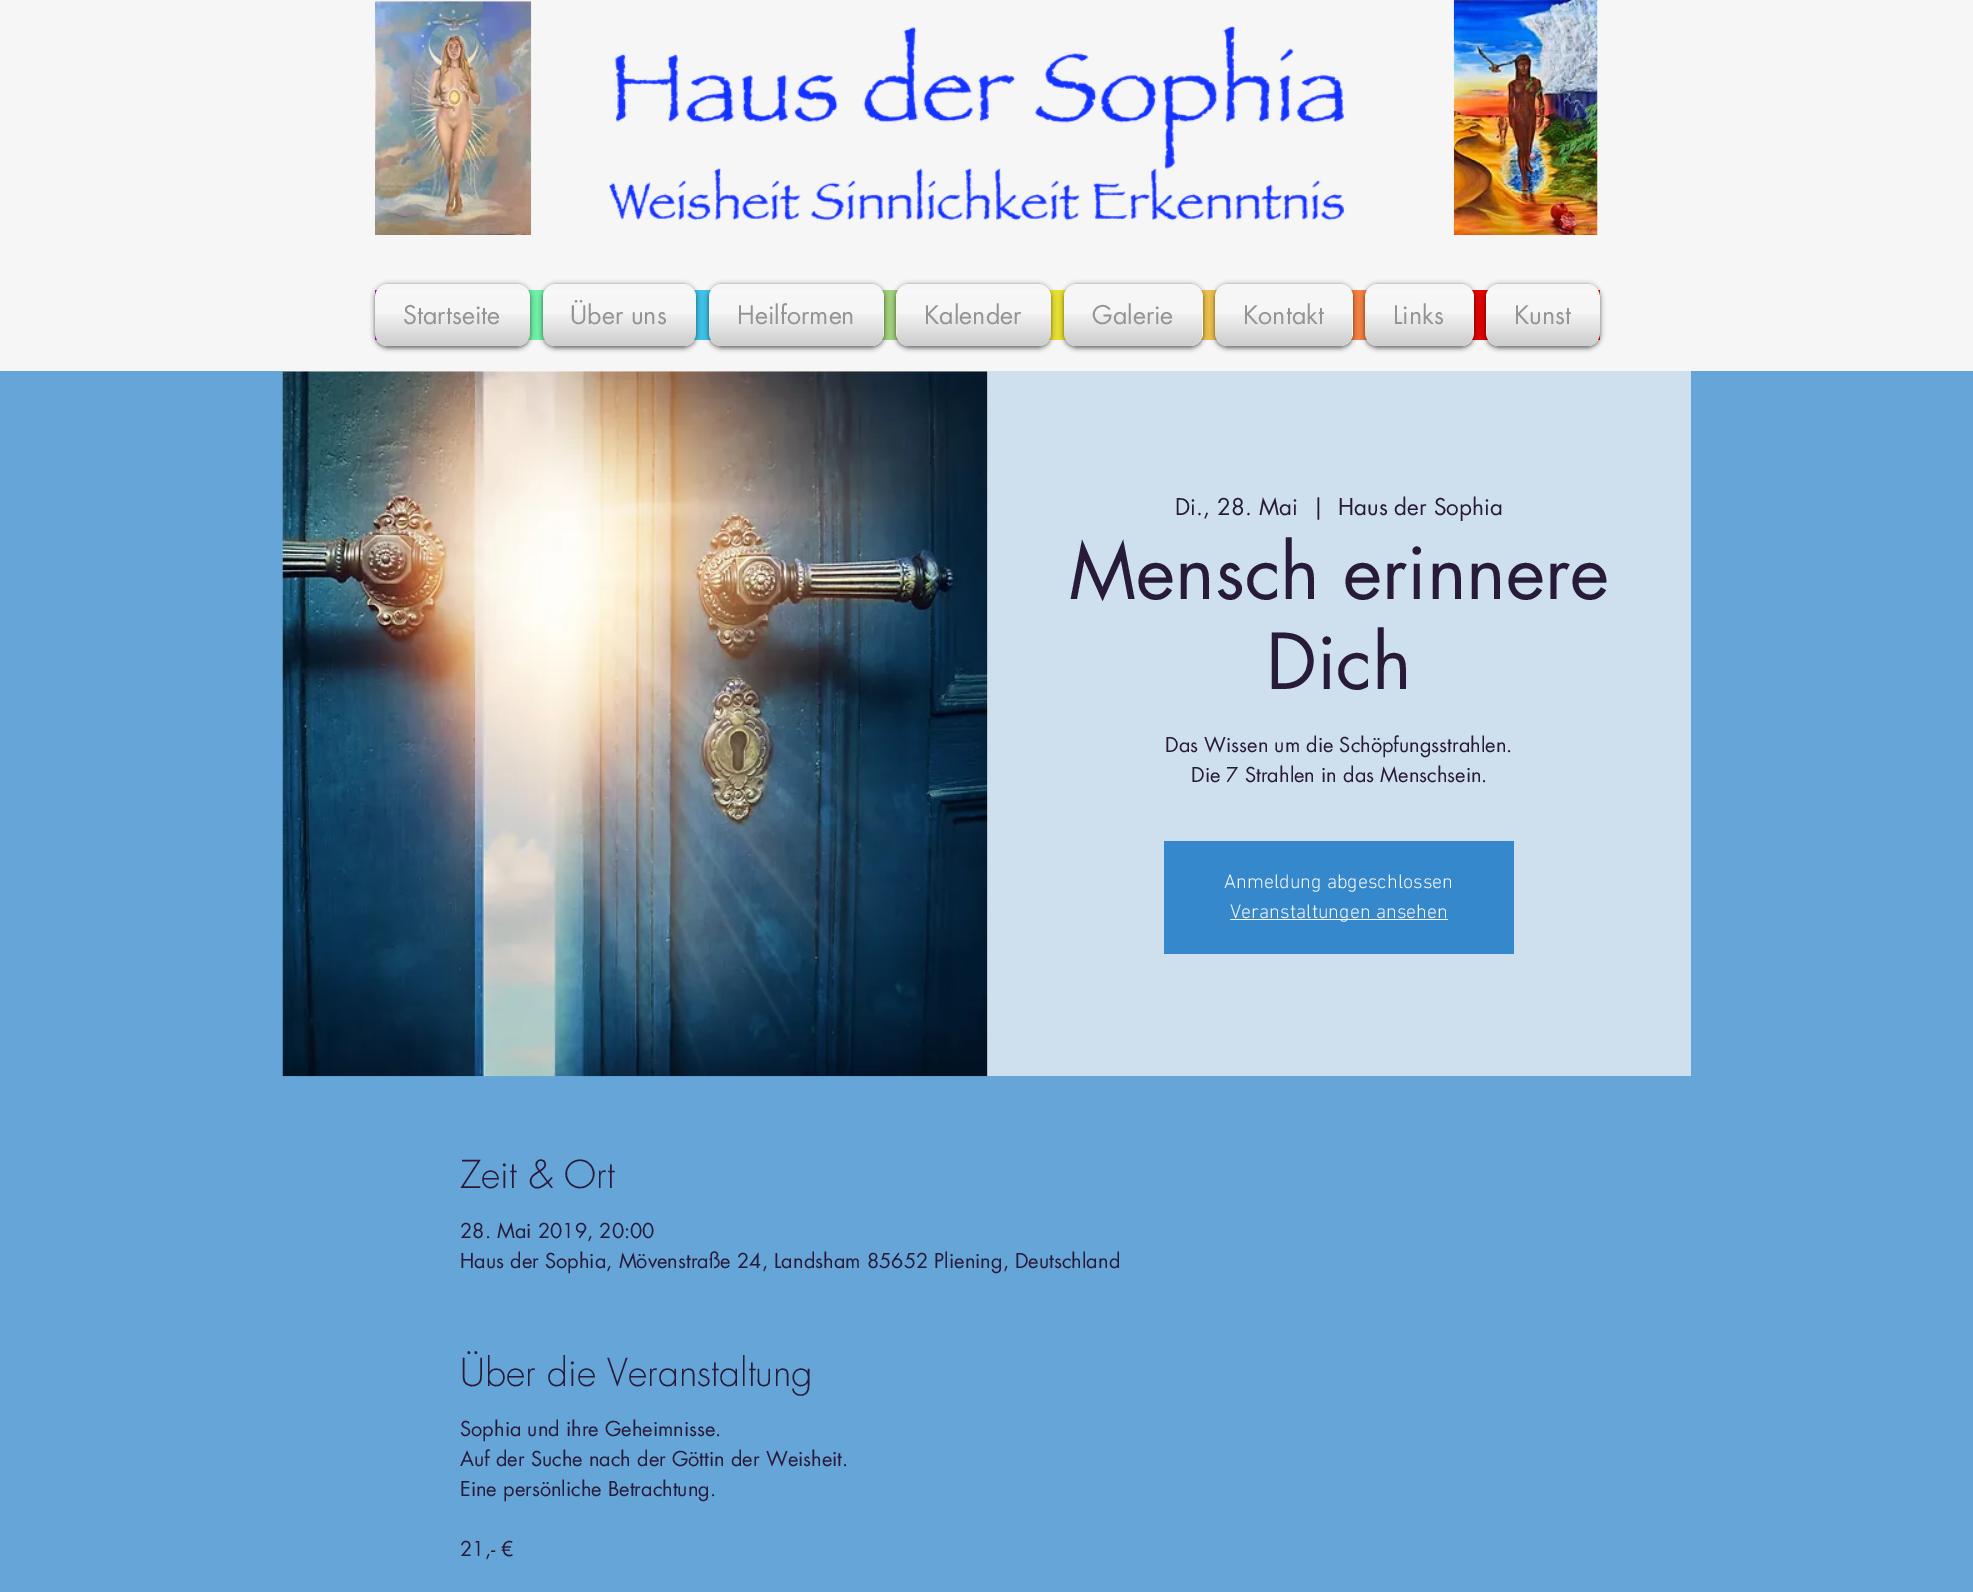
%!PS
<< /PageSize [1973 1592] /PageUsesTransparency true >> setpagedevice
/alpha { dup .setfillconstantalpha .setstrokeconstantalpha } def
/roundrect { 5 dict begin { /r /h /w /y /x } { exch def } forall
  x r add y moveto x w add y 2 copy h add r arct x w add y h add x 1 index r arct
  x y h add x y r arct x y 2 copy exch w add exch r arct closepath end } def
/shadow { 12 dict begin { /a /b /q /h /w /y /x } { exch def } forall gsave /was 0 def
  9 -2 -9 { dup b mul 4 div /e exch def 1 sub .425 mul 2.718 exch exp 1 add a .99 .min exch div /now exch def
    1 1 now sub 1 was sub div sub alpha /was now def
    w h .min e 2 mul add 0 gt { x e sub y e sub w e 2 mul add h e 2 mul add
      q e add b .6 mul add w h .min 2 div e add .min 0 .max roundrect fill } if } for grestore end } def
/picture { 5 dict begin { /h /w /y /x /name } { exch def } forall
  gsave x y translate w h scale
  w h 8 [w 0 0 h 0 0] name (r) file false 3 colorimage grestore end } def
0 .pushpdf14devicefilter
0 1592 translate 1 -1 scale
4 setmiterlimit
0.965 setgray
0 0 1973 1592 rectfill
(img1.rgb) 375 1 157 234 picture
(img2.rgb) 609 26 736 195 picture
(img3.rgb) 1453 0 145 235 picture
0.722 0.043 0.89 setrgbcolor
375 290 3 50 rectfill
0.439 0.941 0.651 setrgbcolor
528 290 18 50 rectfill
0.239 0.757 0.914 setrgbcolor
694 290 18 50 rectfill
0.635 0.82 0.482 setrgbcolor
882 290 17 50 rectfill
0.91 0.875 0.2 setrgbcolor
1049 290 18 50 rectfill
0.929 0.753 0.306 setrgbcolor
1201 290 17 50 rectfill
0.961 0.506 0.259 setrgbcolor
1351 290 17 50 rectfill
0.878 0.008 0.008 setrgbcolor
1472 290 128 50 rectfill
0 setgray
375 285 155 63 13 2.5 0.6 shadow
0.965 setgray
375 284 155 62 13 roundrect fill
(img4.rgb) 375 290 155 6 picture
(img5.rgb) 375 314 155 32 picture
/futura-Regular [25 0 0 -25 0 0] selectfont
0.58 setgray
403 324 moveto (Startseite) show
0 setgray
543 285 153 63 13 2.5 0.6 shadow
0.965 setgray
543 284 153 62 13 roundrect fill
(img6.rgb) 543 290 153 6 picture
(img7.rgb) 543 314 153 32 picture
0.58 setgray
570 324 moveto (Über uns) show
0 setgray
709 285 175 63 13 2.5 0.6 shadow
0.965 setgray
709 284 175 62 13 roundrect fill
(img8.rgb) 709 290 174 6 picture
(img9.rgb) 709 314 175 32 picture
0.58 setgray
737 324 moveto (Heilformen) show
0 setgray
896 285 155 63 13 2.5 0.6 shadow
0.965 setgray
896 284 155 62 13 roundrect fill
(img10.rgb) 897 290 154 6 picture
(img11.rgb) 896 314 155 32 picture
0.58 setgray
924 324 moveto (Kalender) show
0 setgray
1064 285 139 63 13 2.5 0.6 shadow
0.965 setgray
1064 284 139 62 13 roundrect fill
(img12.rgb) 1064 290 2 6 picture
(img13.rgb) 1064 314 138 32 picture
0.58 setgray
1092 324 moveto (Galerie) show
0 setgray
1215 285 138 63 13 2.5 0.6 shadow
0.965 setgray
1215 284 138 62 13 roundrect fill
(img14.rgb) 1215 290 2 6 picture
(img15.rgb) 1215 314 137 32 picture
0.58 setgray
1243 324 moveto (Kontakt) show
0 setgray
1365 285 109 63 13 2.5 0.6 shadow
0.965 setgray
1365 284 109 62 13 roundrect fill
(img16.rgb) 1365 290 108 6 picture
(img17.rgb) 1365 314 109 32 picture
0.58 setgray
1393 324 moveto (Links) show
0 setgray
1486 285 114 63 13 2.5 0.6 shadow
0.965 setgray
1486 284 114 62 13 roundrect fill
(img18.rgb) 1487 290 113 6 picture
(img19.rgb) 1486 314 114 32 picture
0.58 setgray
1514 324 moveto (Kunst) show
0.4 0.647 0.847 setrgbcolor
0 371 1973 1221 rectfill
0.965 setgray
283 371 705 705 rectfill
(img20.rgb) 282 371 706 706 picture
0.808 0.875 0.933 setrgbcolor
988 371 703 705 rectfill
/futura-Regular [22.5 0 0 -22.5 0 0] selectfont
0.157 0.102 0.224 setrgbcolor
1175 515 moveto (Di., 28. Mai) show
1312 515 moveto (|) show
1338 515 moveto (Haus der Sophia) show
/futura-Regular [75 0 0 -75 0 0] selectfont
1069 599 moveto (Mensch erinnere) show
1266 689 moveto (Dich) show
/futura-Regular [20 0 0 -20 0 0] selectfont
1165 752 moveto (Das Wissen um die Schöpfungsstrahlen.) show
1191 782 moveto (Die 7 Strahlen in das Menschsein.) show
0.208 0.533 0.8 setrgbcolor
1164 841 350 113 rectfill
/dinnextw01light-Light [20 0 0 -20 0 0] selectfont
0.965 setgray
1224 888 moveto (Anmeldung abgeschlossen) show
1230 919 218 1 rectfill
1230 918 moveto (Veranstaltungen ansehen) show
/futura-Light [37.5 0 0 -37.5 0 0] selectfont
0.157 0.102 0.224 setrgbcolor
460 1188 moveto (Zeit & Ort) show
/futura-Regular [20 0 0 -20 0 0] selectfont
460 1238 moveto (28. Mai 2019, 20:00) show
460 1268 moveto (Haus der Sophia, Mövenstraße 24, Landsham 85652 Pliening, Deutschland) show
/futura-Light [37.5 0 0 -37.5 0 0] selectfont
460 1386 moveto (Über die Veranstaltung) show
/futura-Regular [20 0 0 -20 0 0] selectfont
460 1436 moveto (Sophia und ihre Geheimnisse.) show
460 1466 moveto (Auf der Suche nach der Göttin der Weisheit.) show
460 1496 moveto (Eine persönliche Betrachtung.) show
460 1556 moveto (21,- €) show
.poppdf14devicefilter showpage
